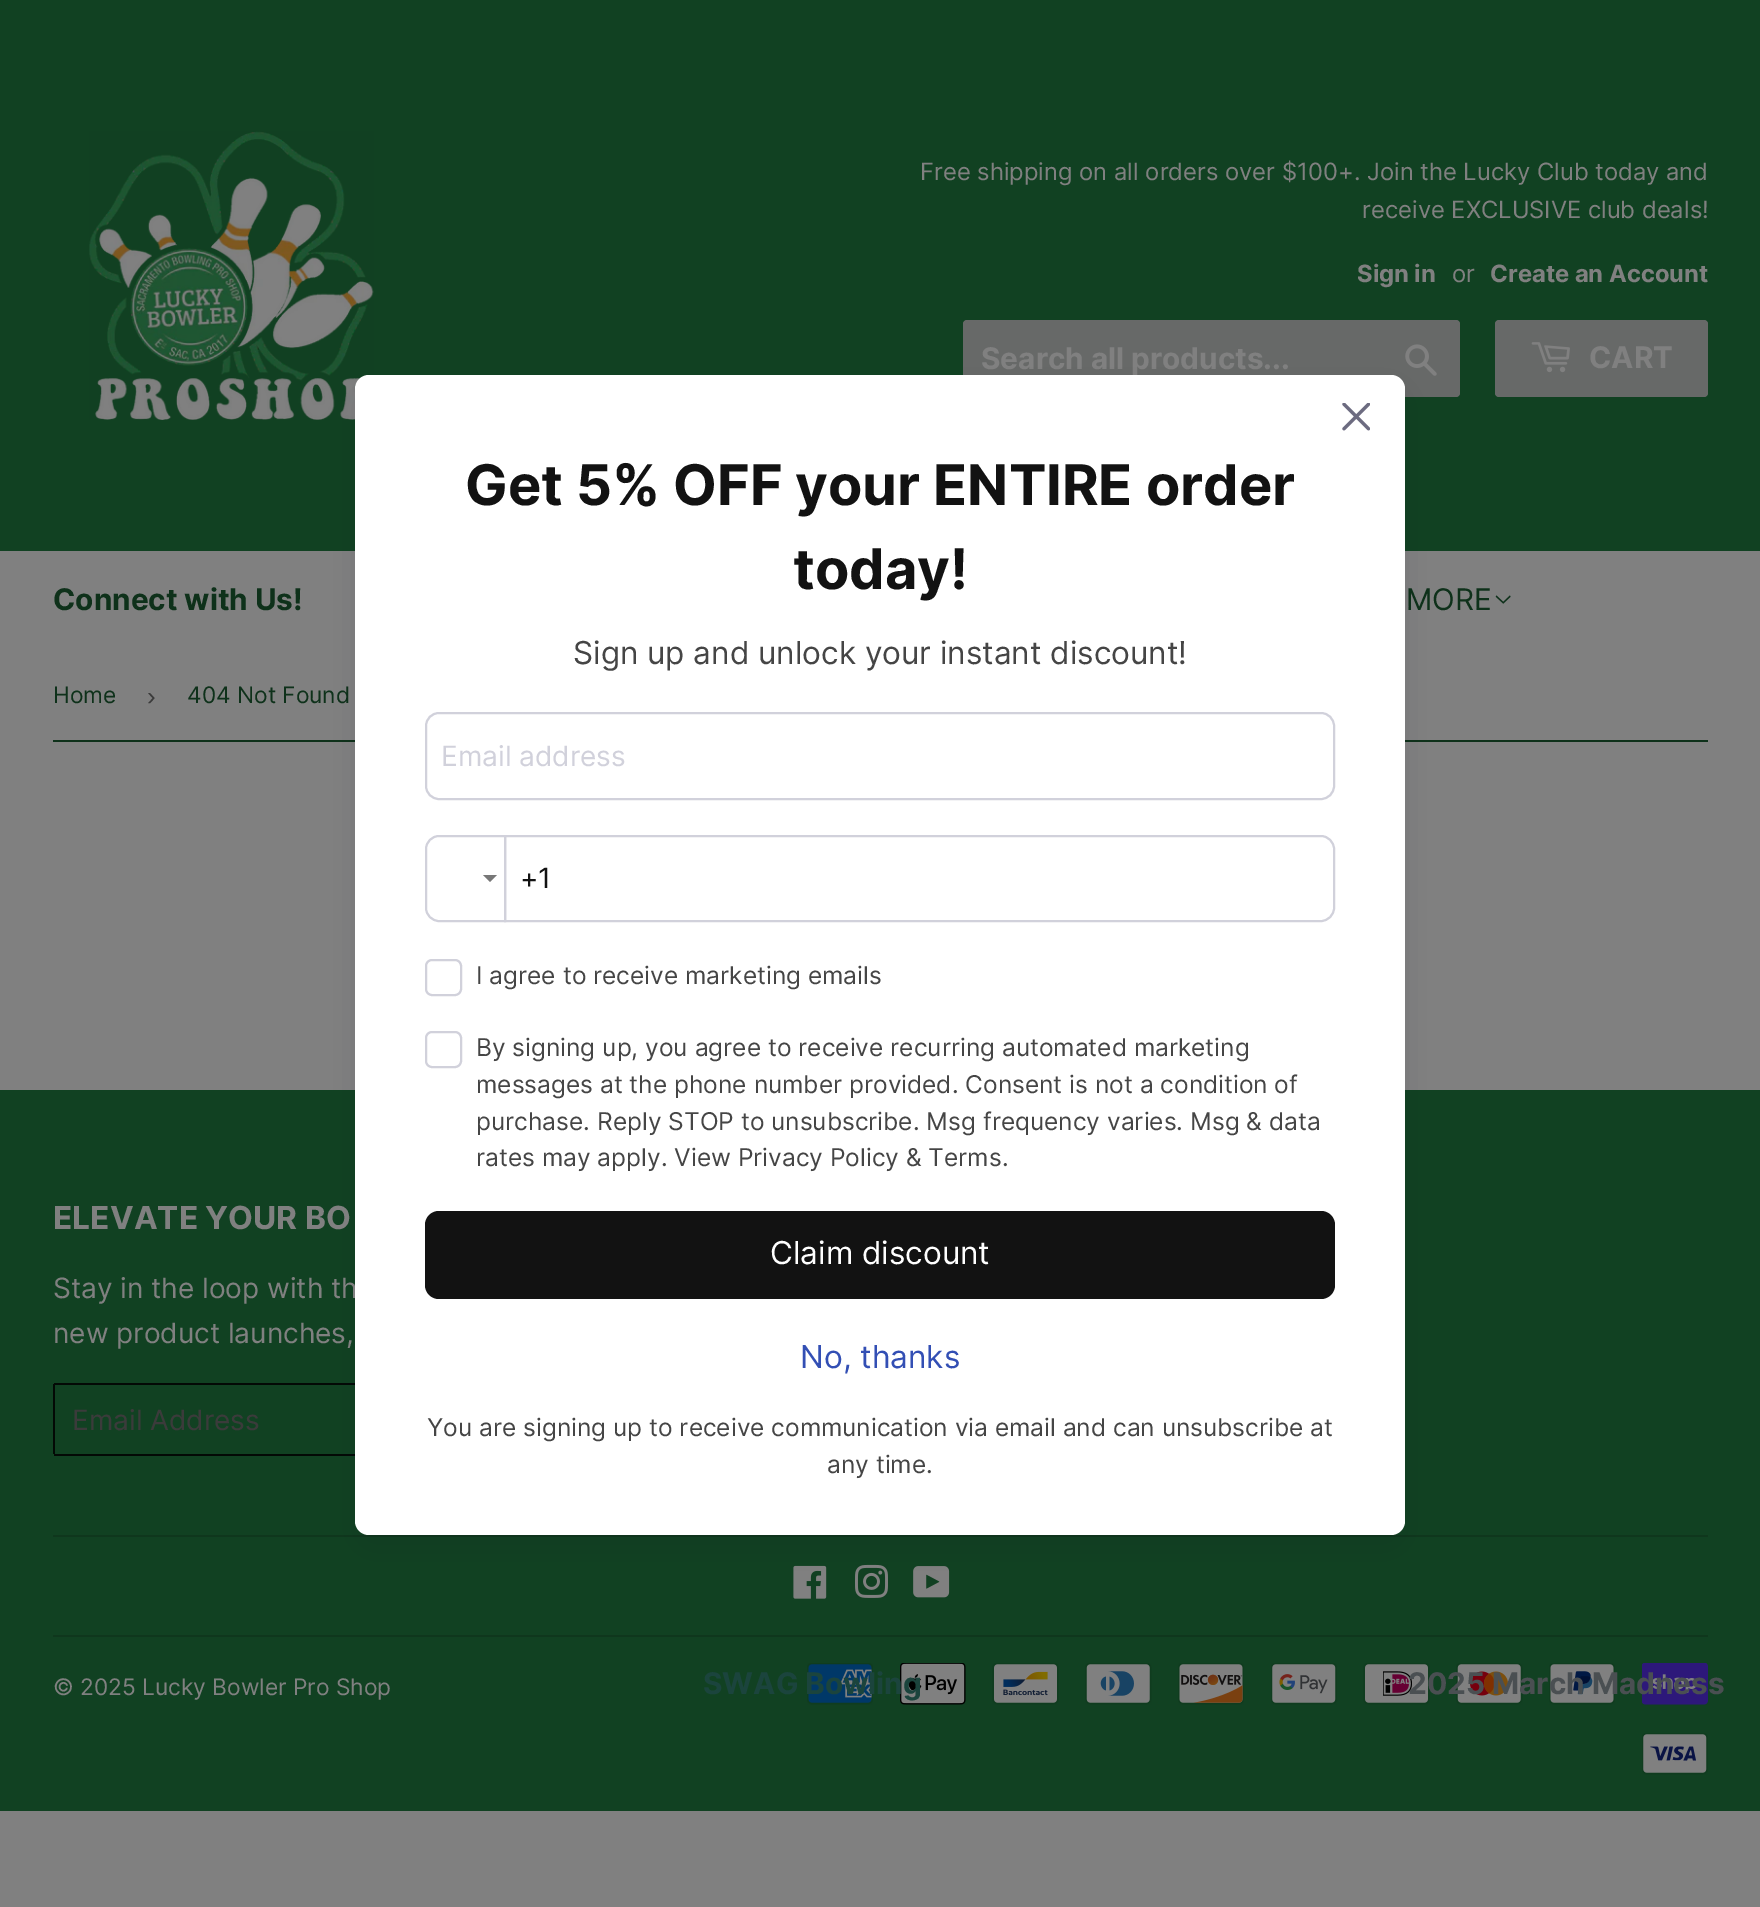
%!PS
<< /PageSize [1760 1907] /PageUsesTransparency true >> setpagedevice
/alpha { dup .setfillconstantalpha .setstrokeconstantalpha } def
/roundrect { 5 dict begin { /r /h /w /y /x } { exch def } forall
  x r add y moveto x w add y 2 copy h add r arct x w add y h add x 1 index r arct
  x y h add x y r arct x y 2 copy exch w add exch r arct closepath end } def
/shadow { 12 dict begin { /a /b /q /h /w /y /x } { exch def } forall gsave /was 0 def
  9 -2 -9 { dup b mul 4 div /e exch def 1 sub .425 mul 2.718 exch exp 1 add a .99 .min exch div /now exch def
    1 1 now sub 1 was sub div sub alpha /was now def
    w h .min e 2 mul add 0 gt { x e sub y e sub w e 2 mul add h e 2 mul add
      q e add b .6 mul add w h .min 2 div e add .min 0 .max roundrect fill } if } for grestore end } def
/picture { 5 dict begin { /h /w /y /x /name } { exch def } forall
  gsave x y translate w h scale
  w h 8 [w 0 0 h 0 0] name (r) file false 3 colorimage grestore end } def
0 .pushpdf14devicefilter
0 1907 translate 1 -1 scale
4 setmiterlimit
0.502 setgray
0 0 1760 1907 rectfill
0.067 0.255 0.133 setrgbcolor
0 0 1760 551 rectfill
(img1.rgb) 89 131 285 289 picture
/Inter-Regular [23.8 0 0 -23.8 0 0] selectfont
0.502 setgray
920 180 moveto (Free shipping on all orders over $100+. Join the Lucky Club today and) show
1362 218 moveto (receive EXCLUSIVE club deals!) show
/Inter-Bold [23.8 0 0 -23.8 0 0] selectfont
1357 282 moveto (Sign in) show
/Inter-Regular [23.8 0 0 -23.8 0 0] selectfont
1452 282 moveto (or) show
/Inter-Bold [23.8 0 0 -23.8 0 0] selectfont
1490 282 moveto (Create an Account) show
0.404 0.412 0.408 setrgbcolor
963 320 497 77 4 roundrect fill
/Inter-Bold [29.75 0 0 -29.75 0 0] selectfont
0.502 setgray
981 369 moveto (Search all products...) show
(img2.rgb) 1405 344 32 32 picture
0.404 0.412 0.408 setrgbcolor
1495 320 213 77 4 roundrect fill
(img3.rgb) 1531 342 39 31 picture
0.502 setgray
1589 368 moveto (CART) show
0.055 0.192 0.102 setrgbcolor
53 610 moveto (Connect with Us!) show
/Inter-Regular [29.75 0 0 -29.75 0 0] selectfont
1406 610 moveto (MORE) show
(img4.rgb) 1495 595 16 9 picture
0.067 0.255 0.133 setrgbcolor
0 1090 1760 721 rectfill
(img9.rgb) 807 1663 66 42 picture
(img10.rgb) 900 1663 66 42 picture
/Inter-Bold [29.75 0 0 -29.75 0 0] selectfont
0.106 0.267 0.239 setrgbcolor
703 1694 moveto (SWAG Bowling) show
(img15.rgb) 1363 1663 67 42 picture
(img16.rgb) 1456 1663 67 42 picture
(img17.rgb) 1549 1663 66 42 picture
(img18.rgb) 1642 1663 66 42 picture
0.29 0.31 0.322 setrgbcolor
1408 1694 moveto (2025 March Madness) show
0.055 0.192 0.102 setrgbcolor
53 740 1655 2 rectfill
/Inter-Regular [22.75 0 0 -22.75 0 0] selectfont
53 703 moveto (Home) show
/LiberationSans-Regular [26 0 0 -26 0 0] selectfont
0.231 setgray
147 705 moveto (›) show
/Inter-Regular [22.75 0 0 -22.75 0 0] selectfont
0.055 0.192 0.102 setrgbcolor
187 703 moveto (404 Not Found) show
0.012 0.035 0.02 setrgbcolor
54 1383 301 2 rectfill
54 1454 301 2 rectfill
0.059 0.216 0.114 setrgbcolor
53 1535 1655 2 rectfill
(img6.rgb) 793 1565 34 34 picture
(img7.rgb) 855 1564 33 34 picture
(img8.rgb) 913 1566 37 32 picture
0.071 0.067 0.153 setrgbcolor
355 389 1050 1160 14 17.5 0.1 shadow
/Inter-Regular [28 0 0 -28 0 0] selectfont
0.502 setgray
53 1298 moveto (Stay in the loop with th) show
1 setgray
355 375 1050 1160 14 roundrect fill
(img5.rgb) 1342 403 28 28 picture
/Inter-Bold [56 0 0 -56 0 0] selectfont
0.071 setgray
465 505 moveto (Get 5% OFF your ENTIRE order) show
793 589 moveto (today!) show
/Inter-Regular [31.5 0 0 -31.5 0 0] selectfont
0.271 setgray
573 664 moveto (Sign up and unlock your instant discount!) show
0.82 0.82 0.859 setrgbcolor
2 setlinewidth
426 713 908 86 13 roundrect stroke
/Inter-Regular [28 0 0 -28 0 0] selectfont
441 766 moveto (Email address) show
newpath 505 836 moveto 1321 836 lineto 1328 836 1334 842 1334 849 curveto 1334 908 lineto 1334 915 1328 921 1321 921 curveto 505 921 lineto closepath stroke
1 setgray
newpath 439 836 moveto 505 836 lineto 505 921 lineto 439 921 lineto 432 921 426 915 426 908 curveto 426 849 lineto 426 842 432 836 439 836 curveto closepath gsave fill grestore
0.82 0.82 0.859 setrgbcolor
stroke
0.467 setgray
newpath 483 875 moveto 497 875 lineto 490 882 lineto closepath fill
0.071 setgray
520 888 moveto (+1) show
0.82 0.82 0.859 setrgbcolor
426 960 35 35 6 roundrect stroke
/Inter-Regular [24.5 0 0 -24.5 0 0] selectfont
0.271 setgray
476 984 moveto (I agree to receive marketing emails) show
0.82 0.82 0.859 setrgbcolor
426 1032 35 35 6 roundrect stroke
0.271 setgray
476 1056 moveto (By signing up, you agree to receive recurring automated marketing) show
476 1093 moveto (messages at the phone number provided. Consent is not a condition of) show
476 1130 moveto (purchase. Reply STOP to unsubscribe. Msg frequency varies. Msg & data) show
476 1166 moveto (rates may apply. View Privacy Policy & Terms.) show
0.071 setgray
425 1211 910 88 14 roundrect fill
/Inter-Regular [31.5 0 0 -31.5 0 0] selectfont
1 setgray
770 1264 moveto (Claim discount) show
0.2 0.31 0.706 setrgbcolor
800 1368 moveto (No, thanks) show
/Inter-Regular [24.5 0 0 -24.5 0 0] selectfont
0.271 setgray
427 1436 moveto (You are signing up to receive communication via email and can unsubscribe at) show
827 1473 moveto (any time.) show
/Inter-Bold [31.75 0 0 -31.75 0 0] selectfont
0.502 setgray
53 1229 moveto (ELEVATE YOUR BO) show
/Inter-Regular [28 0 0 -28 0 0] selectfont
53 1343 moveto (new product launches,) show
0.012 0.035 0.02 setrgbcolor
53 1384 2 70 rectfill
0.231 setgray
72 1430 moveto (Email Address) show
0.059 0.216 0.114 setrgbcolor
53 1635 1655 2 rectfill
/Inter-Regular [22.75 0 0 -22.75 0 0] selectfont
0.502 setgray
53 1695 moveto (© 2025 Lucky Bowler Pro Shop) show
(img11.rgb) 992 1663 67 42 picture
(img12.rgb) 1085 1663 67 42 picture
(img13.rgb) 1178 1663 66 42 picture
(img14.rgb) 1271 1663 66 42 picture
(img19.rgb) 1642 1733 66 42 picture
.poppdf14devicefilter showpage
